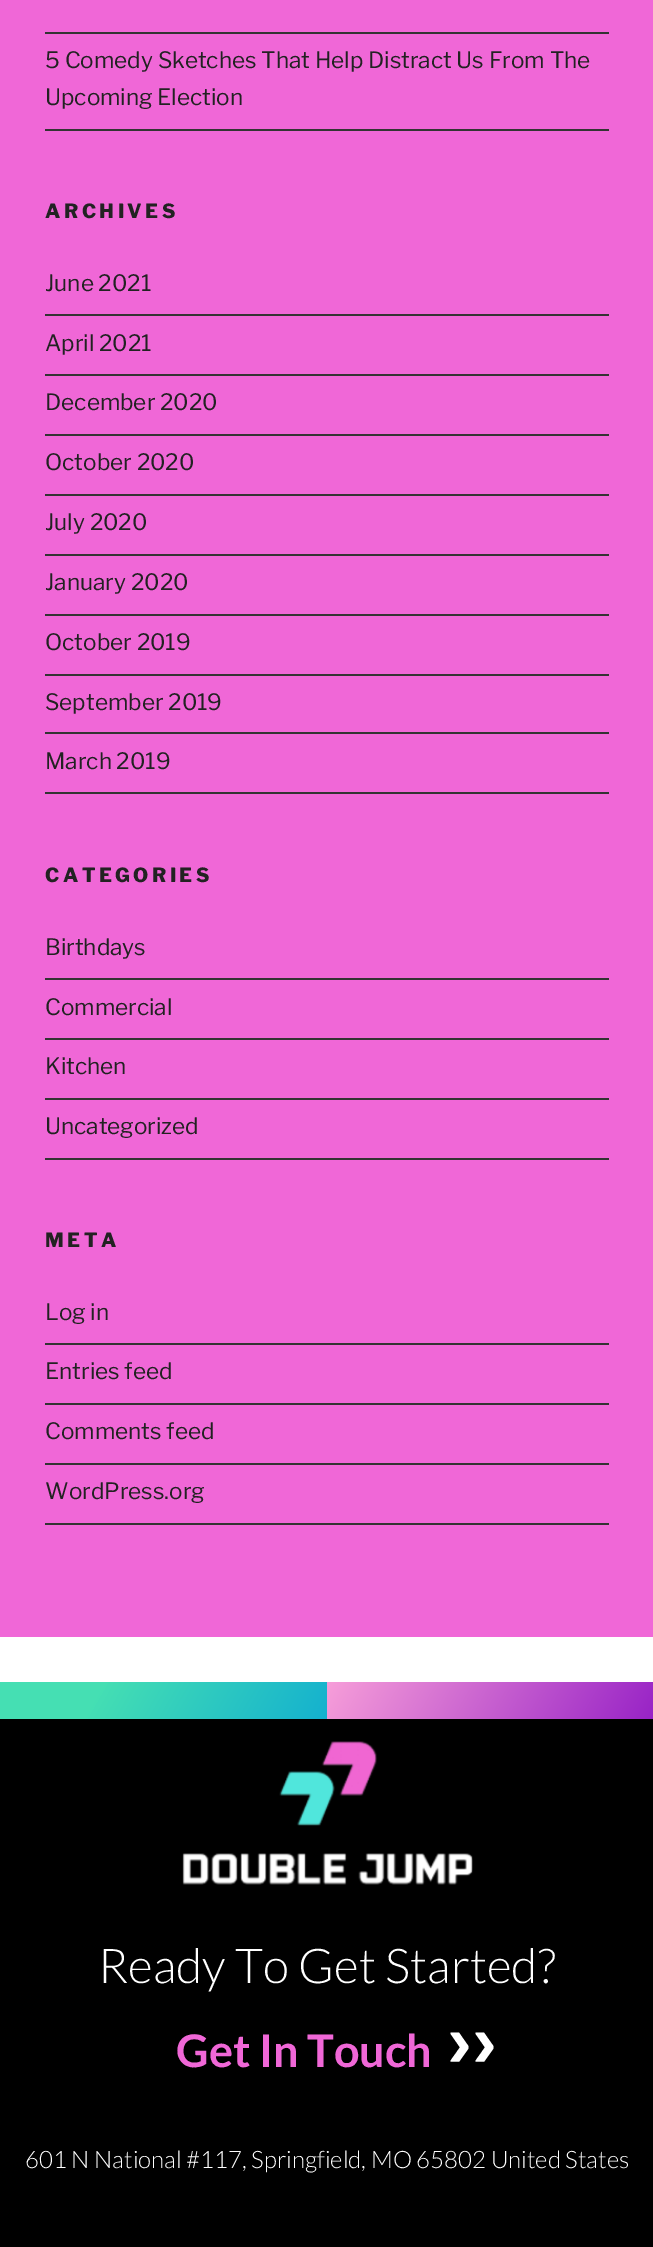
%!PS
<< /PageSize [653 2247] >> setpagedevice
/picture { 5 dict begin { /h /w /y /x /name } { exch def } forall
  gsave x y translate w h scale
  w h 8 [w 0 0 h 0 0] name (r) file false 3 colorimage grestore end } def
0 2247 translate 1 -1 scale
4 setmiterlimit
1 setgray
0 0 653 2247 rectfill
0.941 0.404 0.843 setrgbcolor
0 0 653 1637 rectfill
0.2 setgray
45 32 564 2 rectfill
45 129 564 2 rectfill
/LibreFranklin-Thin [22.5 0 0 -22.5 0 0] selectfont
0.133 setgray
45 68 moveto (5 Comedy Sketches That Help Distract Us From The) show
45 105 moveto (Upcoming Election) show
/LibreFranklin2-Thin [19.5 0 0 -19.5 0 0] selectfont
45 218 moveto 3.5 0 (ARCHIVES) ashow
0.2 setgray
45 314 564 2 rectfill
/LibreFranklin-Thin [22.5 0 0 -22.5 0 0] selectfont
0.133 setgray
45 291 moveto (June 2021) show
0.2 setgray
45 374 564 2 rectfill
0.133 setgray
45 351 moveto (April 2021) show
0.2 setgray
45 434 564 2 rectfill
0.133 setgray
45 410 moveto (December 2020) show
0.2 setgray
45 494 564 2 rectfill
0.133 setgray
45 470 moveto (October 2020) show
0.2 setgray
45 554 564 2 rectfill
0.133 setgray
45 530 moveto (July 2020) show
0.2 setgray
45 614 564 2 rectfill
0.133 setgray
45 590 moveto (January 2020) show
0.2 setgray
45 674 564 2 rectfill
0.133 setgray
45 650 moveto (October 2019) show
0.2 setgray
45 732 564 2 rectfill
0.133 setgray
45 710 moveto (September 2019) show
0.2 setgray
45 792 564 2 rectfill
0.133 setgray
45 769 moveto (March 2019) show
/LibreFranklin2-Thin [19.5 0 0 -19.5 0 0] selectfont
45 882 moveto 3.5 0 (CATEGORIES) ashow
0.2 setgray
45 978 564 2 rectfill
/LibreFranklin-Thin [22.5 0 0 -22.5 0 0] selectfont
0.133 setgray
45 955 moveto (Birthdays) show
0.2 setgray
45 1038 564 2 rectfill
0.133 setgray
45 1015 moveto (Commercial) show
0.2 setgray
45 1098 564 2 rectfill
0.133 setgray
45 1074 moveto (Kitchen) show
0.2 setgray
45 1158 564 2 rectfill
0.133 setgray
45 1134 moveto (Uncategorized) show
/LibreFranklin2-Thin [19.5 0 0 -19.5 0 0] selectfont
45 1247 moveto 3.5 0 (META) ashow
0.2 setgray
45 1343 564 2 rectfill
/LibreFranklin-Thin [22.5 0 0 -22.5 0 0] selectfont
0.133 setgray
45 1320 moveto (Log in) show
0.2 setgray
45 1403 564 2 rectfill
0.133 setgray
45 1379 moveto (Entries feed) show
0.2 setgray
45 1463 564 2 rectfill
0.133 setgray
45 1439 moveto (Comments feed) show
0.2 setgray
45 1523 564 2 rectfill
0.133 setgray
45 1499 moveto (WordPress.org) show
gsave newpath 0 1682 moveto 327 1682 lineto 327 1719 lineto 0 1719 lineto closepath clip newpath
<< /ShadingType 2 /ColorSpace /DeviceRGB /Coords [18 1650 309 1818] /Extend [true true] /Function << /FunctionType 3 /Domain [0 1] /Functions [<< /FunctionType 2 /Domain [0 1] /C0 [0.271 0.875 0.702] /C1 [0.271 0.875 0.702] /N 1 >> << /FunctionType 2 /Domain [0 1] /C0 [0.271 0.875 0.702] /C1 [0.047 0.667 0.831] /N 1 >>] /Bounds [0.27] /Encode [0 1 0 1] >> >> shfill grestore
gsave newpath 327 1682 moveto 653 1682 lineto 653 1719 lineto 327 1719 lineto closepath clip newpath
<< /ShadingType 2 /ColorSpace /DeviceRGB /Coords [345 1650 636 1818] /Extend [true true] /Function << /FunctionType 2 /Domain [0 1] /C0 [0.969 0.62 0.851] /C1 [0.553 0.082 0.769] /N 1 >> >> shfill grestore
0 setgray
0 1719 653 528 rectfill
(img1.rgb) 182 1741 291 144 picture
/Lato-Light [48 0 0 -48 0 0] selectfont
1 setgray
98 1983 moveto (Ready To Get Started?) show
/Lato-Bold [45 0 0 -45 0 0] selectfont
0.941 0.404 0.843 setrgbcolor
176 2067 moveto (Get In Touch) show
/LiberationSans-Bold [75 0 0 -75 0 0] selectfont
1 setgray
447 2067 moveto (›) show
472 2067 moveto (›) show
/Lato-Light [24 0 0 -24 0 0] selectfont
25 2168 moveto (601 N National #117, Springfield, MO 65802 United States) show
showpage
